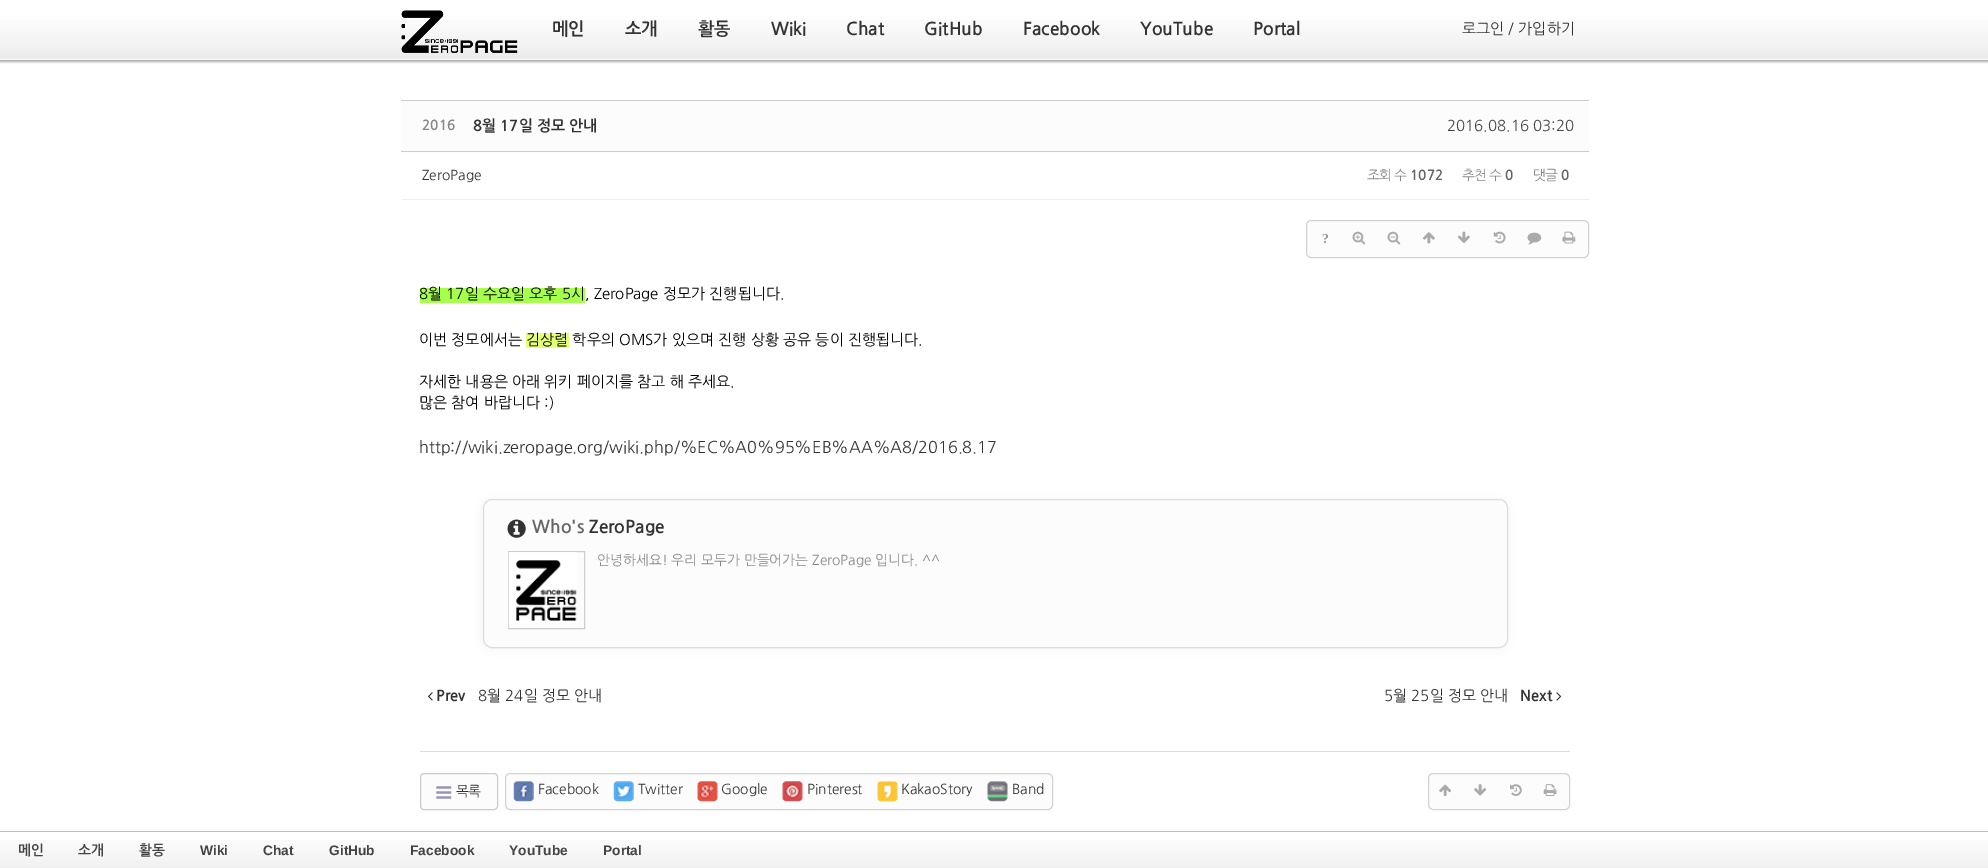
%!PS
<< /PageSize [1988 868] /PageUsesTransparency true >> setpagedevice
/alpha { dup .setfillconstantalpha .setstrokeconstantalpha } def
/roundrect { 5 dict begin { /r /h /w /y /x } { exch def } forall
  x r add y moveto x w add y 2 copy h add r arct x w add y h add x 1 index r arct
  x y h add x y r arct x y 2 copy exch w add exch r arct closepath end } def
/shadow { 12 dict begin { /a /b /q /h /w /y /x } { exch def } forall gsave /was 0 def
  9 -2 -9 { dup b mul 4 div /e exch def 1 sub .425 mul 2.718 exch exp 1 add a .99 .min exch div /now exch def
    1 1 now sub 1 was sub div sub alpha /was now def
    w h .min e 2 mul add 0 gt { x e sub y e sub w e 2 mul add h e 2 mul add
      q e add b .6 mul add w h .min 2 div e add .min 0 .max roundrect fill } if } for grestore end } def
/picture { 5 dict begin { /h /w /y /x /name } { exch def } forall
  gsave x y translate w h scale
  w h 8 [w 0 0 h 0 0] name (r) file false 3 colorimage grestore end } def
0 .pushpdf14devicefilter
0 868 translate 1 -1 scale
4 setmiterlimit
1 setgray
0 0 1988 868 rectfill
(img1.rgb) 0 20 1988 44 picture
(img2.rgb) 401 10 117 43 picture
/NanumGothic-Bold [17.5 0 0 -17.5 0 0] selectfont
0.2 setgray
552 35 moveto (메인) show
625 35 moveto (소개) show
698 35 moveto (활동) show
771 35 moveto (Wiki) show
846 35 moveto (Chat) show
924 35 moveto (GitHub) show
1023 35 moveto (Facebook) show
1140 35 moveto (YouTube) show
1253 35 moveto (Portal) show
/NanumGothic-Regular [15 0 0 -15 0 0] selectfont
1462 34 moveto (로그인 / 가입하기) show
0.988 setgray
401 101 1188 52 rectfill
0.8 setgray
401 100 1188 1 rectfill
401 151 1188 1 rectfill
/NanumGothic-Bold [13.75 0 0 -13.75 0 0] selectfont
0.533 setgray
422 130 moveto (2016) show
/NanumGothic-Bold [15 0 0 -15 0 0] selectfont
0.2 setgray
473 131 moveto (8월 17일 정모 안내) show
/NanumGothic-Regular [15 0 0 -15 0 0] selectfont
0.267 setgray
1447 131 moveto (2016.08.16 03:20) show
0.933 setgray
401 199 1188 1 rectfill
/NanumGothic-Regular [13.75 0 0 -13.75 0 0] selectfont
0.2 setgray
422 180 moveto (ZeroPage) show
0.533 setgray
1367 180 moveto -1 0 (조회 수) ashow
/NanumGothic-Bold [13.75 0 0 -13.75 0 0] selectfont
0.4 setgray
1410 180 moveto (1072) show
/NanumGothic-Regular [13.75 0 0 -13.75 0 0] selectfont
0.533 setgray
1462 180 moveto -1 0 (추천 수) ashow
/NanumGothic-Bold [13.75 0 0 -13.75 0 0] selectfont
0.4 setgray
1505 180 moveto (0) show
/NanumGothic-Regular [13.75 0 0 -13.75 0 0] selectfont
0.533 setgray
1533 180 moveto -1 0 (댓글) ashow
/NanumGothic-Bold [13.75 0 0 -13.75 0 0] selectfont
0.4 setgray
1561 180 moveto (0) show
0.988 setgray
1306.5 220.5 282 37 4.5 roundrect gsave fill grestore
0.827 setgray
stroke
/LiberationSerif-Bold [13.75 0 0 -13.75 0 0] selectfont
0.6 setgray
1322 243 moveto -1 0 (?) ashow
(img3.rgb) 1352 231 14 14 picture
(img4.rgb) 1387 231 14 14 picture
(img5.rgb) 1423 232 12 12 picture
(img6.rgb) 1458 231 12 12 picture
(img7.rgb) 1493 231 13 13 picture
(img8.rgb) 1527 232 15 13 picture
(img9.rgb) 1562 231 14 13 picture
0.651 1 0.302 setrgbcolor
420 288 165 15 rectfill
/NanumGothic-Regular [15 0 0 -15 0 0] selectfont
0 setgray
419 299 moveto (8월 17일 수요일 오후 5시, ZeroPage 정모가 진행됩니다.) show
419 345 moveto (이번 정모에서는) show
0.894 1 0.459 setrgbcolor
526 333 43 15 rectfill
0 setgray
526 345 moveto (김상렬 학우의 OMS가 있으며 진행 상황 공유 등이 진행됩니다.) show
419 387 moveto (자세한 내용은 아래 위키 페이지를 참고 해 주세요.) show
419 408 moveto (많은 참여 바랍니다 :\)) show
/NanumGothic-Regular [16.25 0 0 -16.25 0 0] selectfont
0.2 setgray
419 453 moveto (http://wiki.zeropage.org/wiki.php/%EC%A0%95%EB%AA%A8/2016.8.17) show
0 setgray
486 504 1018 141 5 5.5 0.1 shadow
0.988 setgray
483.5 499.5 1024 148 8.5 roundrect gsave fill grestore
0.867 setgray
stroke
(img10.rgb) 507 519 19 19 picture
/NanumGothic-Bold [17.5 0 0 -17.5 0 0] selectfont
0.4 setgray
532 533 moveto (Who's) show
0.2 setgray
589 533 moveto (ZeroPage) show
0.8 setgray
508.5 551.5 76 77 rectstroke
(img11.rgb) 508 552 69 76 picture
/NanumGothic-Regular [13.75 0 0 -13.75 0 0] selectfont
0.533 setgray
597 565 moveto (안녕하세요! 우리 모두가 만들어가는 ZeroPage 입니다. ^^) show
(img12.rgb) 427 692 6 9 picture
/NanumGothic-Bold [15 0 0 -15 0 0] selectfont
0.2 setgray
436 701 moveto (Prev) show
/NanumGothic-Regular [15 0 0 -15 0 0] selectfont
478 701 moveto (8월 24일 정모 안내) show
1384 701 moveto (5월 25일 정모 안내) show
/NanumGothic-Bold [15 0 0 -15 0 0] selectfont
1520 701 moveto (Next) show
(img13.rgb) 1556 692 6 9 picture
0.867 setgray
420 751 1150 1 rectfill
0.988 setgray
420.5 773.5 77 36 3.5 roundrect gsave fill grestore
0.8 setgray
stroke
(img14.rgb) 436 786 16 13 picture
/NanumGothic-Regular [13.75 0 0 -13.75 0 0] selectfont
0.2 setgray
456 796 moveto -1 0 (목록) ashow
0.988 setgray
505.5 773.5 547 36 4.5 roundrect gsave fill grestore
0.827 setgray
stroke
(img15.rgb) 513 781 21 21 picture
0.2 setgray
538 794 moveto (Facebook) show
(img16.rgb) 613 781 21 21 picture
638 794 moveto (Twitter) show
(img17.rgb) 697 781 21 21 picture
721 794 moveto (Google) show
(img18.rgb) 782 781 21 21 picture
807 794 moveto (Pinterest) show
(img19.rgb) 877 781 21 21 picture
901 794 moveto (KakaoStory) show
(img20.rgb) 987 781 21 21 picture
1012 794 moveto (Band) show
0.988 setgray
1428.5 773.5 141 36 4.5 roundrect gsave fill grestore
0.827 setgray
stroke
(img21.rgb) 1439 784 12 12 picture
(img22.rgb) 1474 784 12 12 picture
(img23.rgb) 1510 784 12 12 picture
(img24.rgb) 1543 784 14 12 picture
(img25.rgb) 0 840 1988 28 picture
0.749 setgray
0 831 1988 1 rectfill
/NanumGothic-Bold [13.75 0 0 -13.75 0 0] selectfont
0.267 setgray
18 855 moveto (메인) show
78 855 moveto (소개) show
139 855 moveto (활동) show
/LiberationSans-Bold [13.75 0 0 -13.75 0 0] selectfont
200 855 moveto (Wiki) show
263 855 moveto (Chat) show
329 855 moveto (GitHub) show
410 855 moveto (Facebook) show
509 855 moveto (YouTube) show
603 855 moveto (Portal) show
.poppdf14devicefilter showpage
